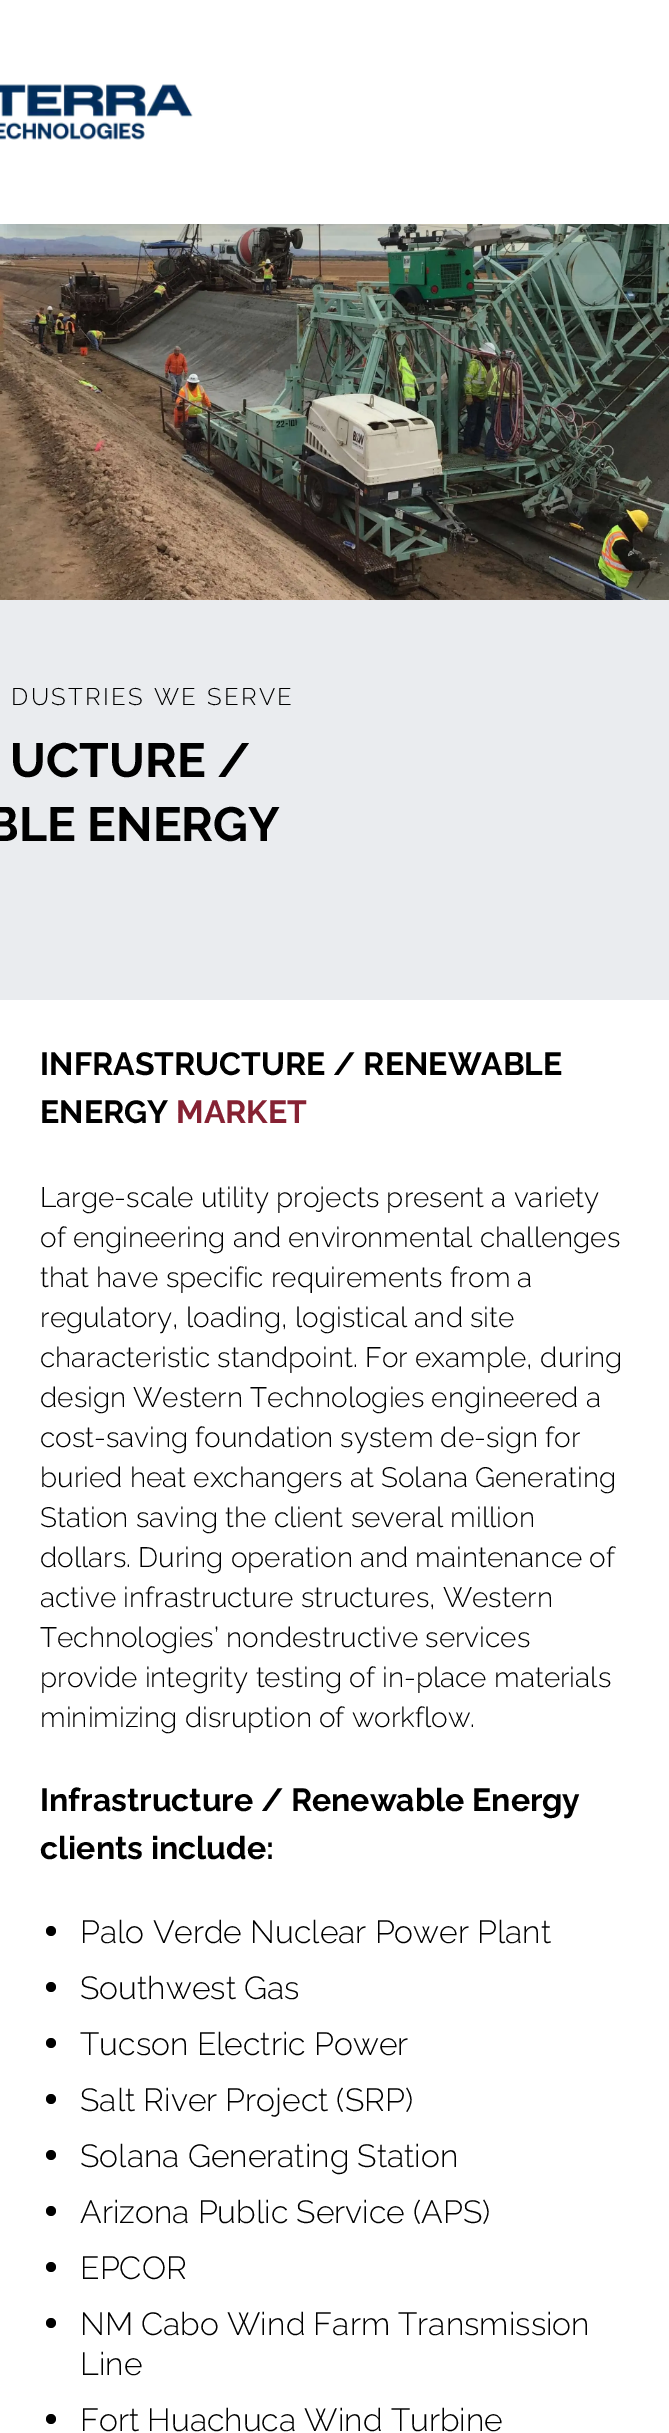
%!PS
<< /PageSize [669 2433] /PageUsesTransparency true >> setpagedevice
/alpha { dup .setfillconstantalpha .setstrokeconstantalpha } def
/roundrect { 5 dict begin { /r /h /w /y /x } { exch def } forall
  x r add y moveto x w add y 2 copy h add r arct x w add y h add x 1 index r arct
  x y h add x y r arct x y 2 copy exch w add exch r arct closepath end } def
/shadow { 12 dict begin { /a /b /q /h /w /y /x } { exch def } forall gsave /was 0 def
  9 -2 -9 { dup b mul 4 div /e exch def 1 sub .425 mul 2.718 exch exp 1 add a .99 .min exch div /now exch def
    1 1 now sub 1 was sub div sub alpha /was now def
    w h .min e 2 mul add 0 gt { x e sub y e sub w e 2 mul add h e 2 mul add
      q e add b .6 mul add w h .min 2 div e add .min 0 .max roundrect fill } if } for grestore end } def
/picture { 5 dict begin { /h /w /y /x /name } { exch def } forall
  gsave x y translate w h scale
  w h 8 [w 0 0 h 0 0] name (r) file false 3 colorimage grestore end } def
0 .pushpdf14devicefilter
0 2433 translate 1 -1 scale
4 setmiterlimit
1 setgray
0 0 669 2433 rectfill
(img2.rgb) 0 224 669 376 picture
gsave
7 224 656 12 rectclip
0 setgray
12 28 646 200 0 10 0.1 shadow
grestore
gsave
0 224 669 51 rectclip
0 setgray
10 50 650 204 0 25 0.1 shadow
grestore
(img1.rgb) 0 84 193 56 picture
0.918 0.925 0.937 setrgbcolor
0 600 669 400 rectfill
/Raleway-Light [24 0 0 -24 0 0] selectfont
0 setgray
11 705 moveto 2.4 0 (DUSTRIES WE SERVE) ashow
/Raleway-Bold [48 0 0 -48 0 0] selectfont
10 777 moveto (UCTURE /) show
-14 841 moveto (BLE ENERGY) show
/Raleway-Bold [32 0 0 -32 0 0] selectfont
40 1075 moveto (INFRASTRUCTURE / RENEWABLE) show
40 1123 moveto (ENERGY) show
0.525 0.133 0.2 setrgbcolor
176 1123 moveto (MARKET) show
/Raleway-Light [28 0 0 -28 0 0] selectfont
0 setgray
40 1207 moveto (Large-scale utility projects present a variety) show
40 1247 moveto (of engineering and environmental challenges) show
40 1287 moveto (that have specific requirements from a) show
40 1327 moveto (regulatory, loading, logistical and site) show
40 1367 moveto (characteristic standpoint. For example, during) show
40 1407 moveto (design Western Technologies engineered a) show
40 1447 moveto (cost-saving foundation system de-sign for) show
40 1487 moveto (buried heat exchangers at Solana Generating) show
40 1527 moveto (Station saving the client several million) show
40 1567 moveto (dollars. During operation and maintenance of) show
40 1607 moveto (active infrastructure structures, Western) show
40 1647 moveto (Technologies’ nondestructive services) show
40 1687 moveto (provide integrity testing of in-place materials) show
40 1727 moveto (minimizing disruption of workflow.) show
/Raleway-Bold [32 0 0 -32 0 0] selectfont
40 1811 moveto (Infrastructure / Renewable Energy) show
40 1859 moveto (clients include:) show
newpath 51 1931 5 0 360 arc closepath fill
/Raleway-Light [32 0 0 -32 0 0] selectfont
80 1943 moveto (Palo Verde Nuclear Power Plant) show
newpath 51 1987 5 0 360 arc closepath fill
80 1999 moveto (Southwest Gas) show
newpath 51 2043 5 0 360 arc closepath fill
80 2055 moveto (Tucson Electric Power) show
newpath 51 2099 5 0 360 arc closepath fill
80 2111 moveto (Salt River Project \(SRP\)) show
newpath 51 2155 5 0 360 arc closepath fill
80 2167 moveto (Solana Generating Station) show
newpath 51 2211 5 0 360 arc closepath fill
80 2223 moveto (Arizona Public Service \(APS\)) show
newpath 51 2267 5 0 360 arc closepath fill
80 2279 moveto (EPCOR) show
newpath 51 2323 5 0 360 arc closepath fill
80 2335 moveto (NM Cabo Wind Farm Transmission) show
80 2375 moveto (Line) show
newpath 51 2419 5 0 360 arc closepath fill
80 2431 moveto (Fort Huachuca Wind Turbine) show
.poppdf14devicefilter showpage
